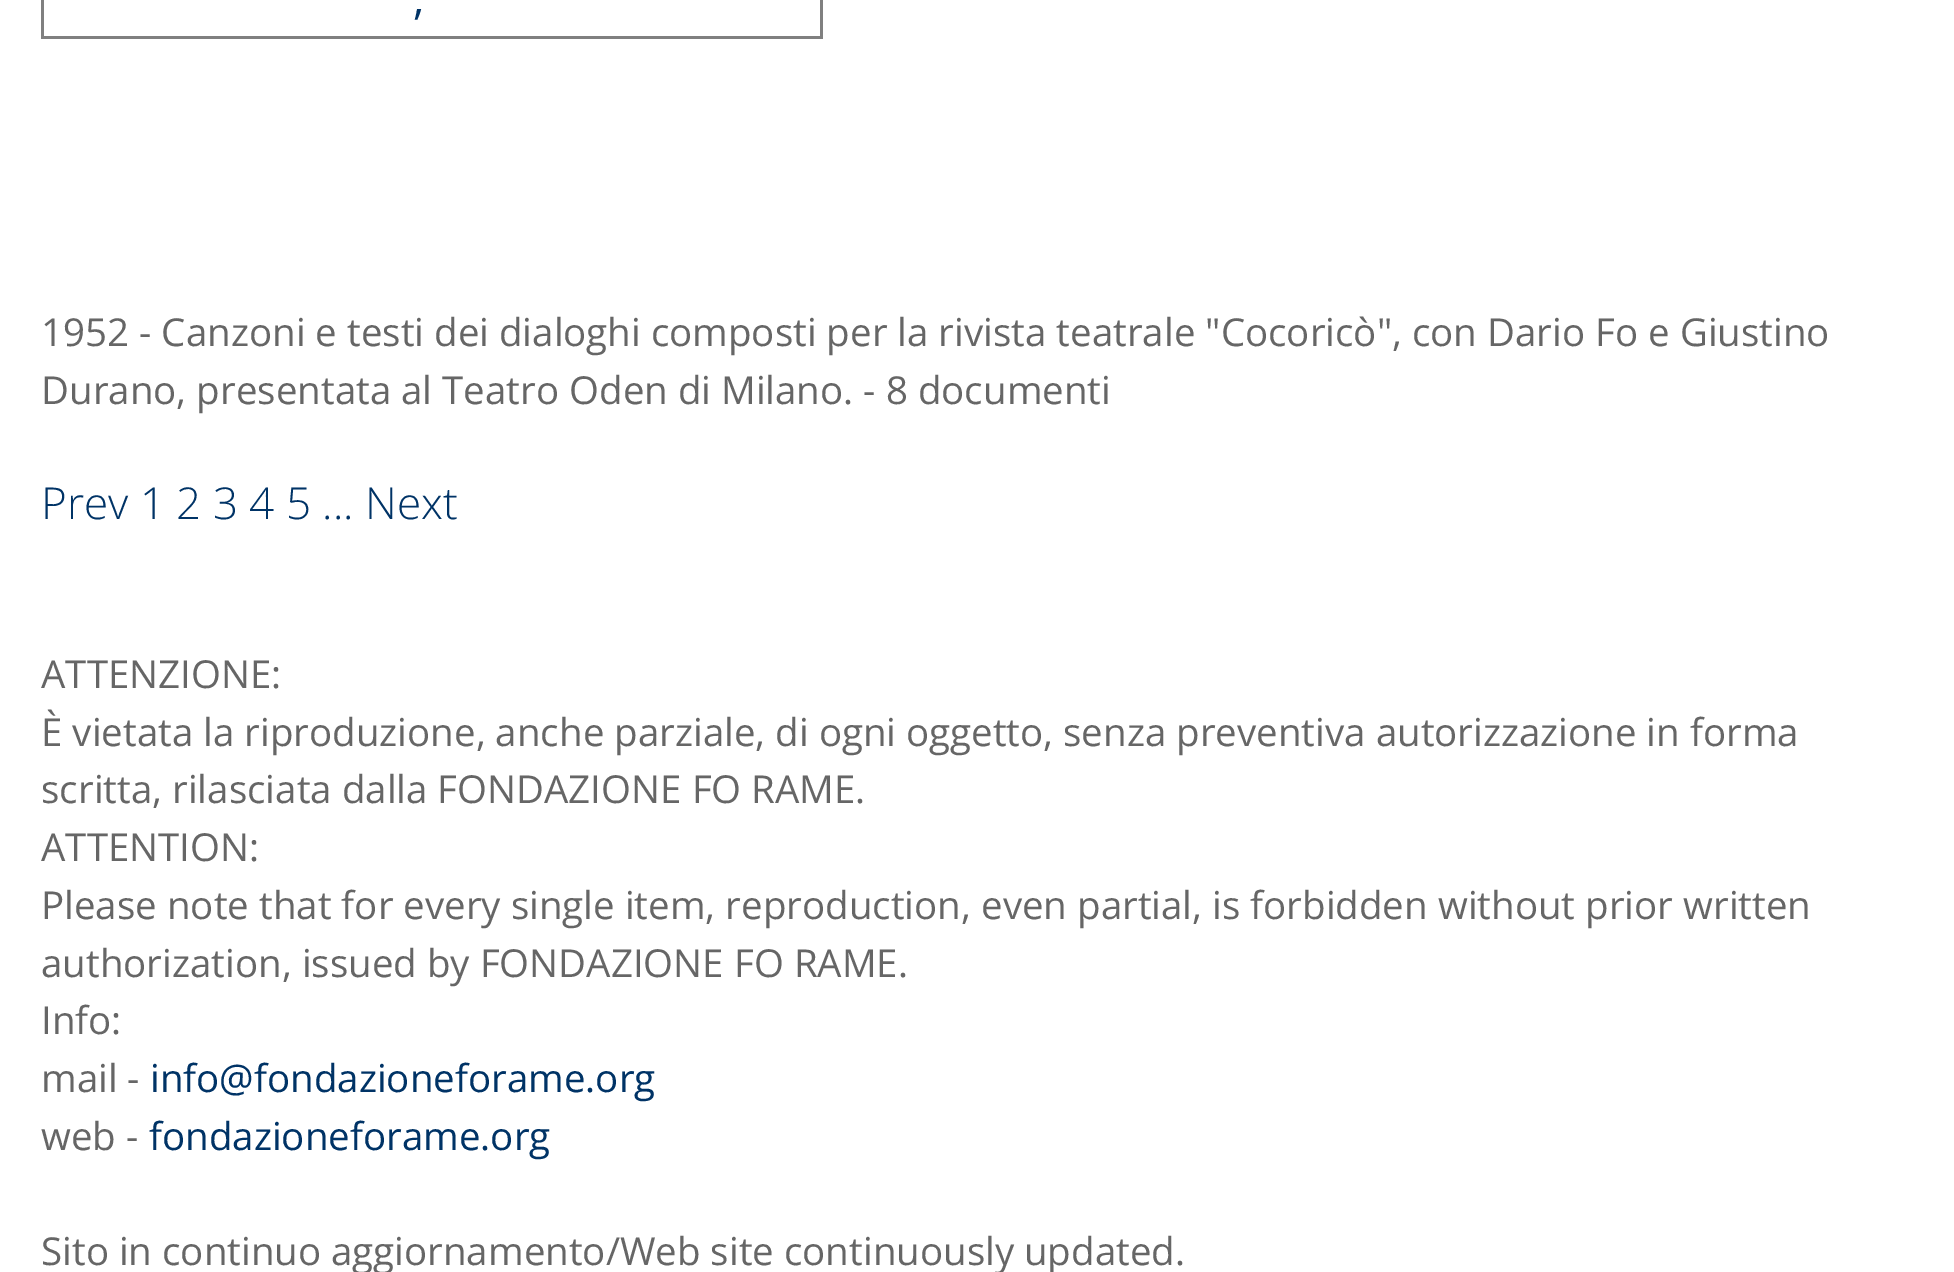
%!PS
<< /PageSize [1954 1272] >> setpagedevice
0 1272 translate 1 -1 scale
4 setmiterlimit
1 setgray
0 0 1954 1272 rectfill
0.502 setgray
820 0 3 39 rectfill
41 36 781 3 rectfill
41 0 3 39 rectfill
/OpenSans-Regular [44 0 0 -44 0 0] selectfont
0 0.2 0.4 setrgbcolor
413 14 moveto (,) show
/OpenSans-Regular [38.5 0 0 -38.5 0 0] selectfont
0.4 setgray
41 346 moveto (1952 - Canzoni e testi dei dialoghi composti per la rivista teatrale "Cocoricò", con Dario Fo e Giustino) show
41 404 moveto (Durano, presentata al Teatro Oden di Milano. - 8 documenti) show
/OpenSans-Light [44 0 0 -44 0 0] selectfont
0 0.2 0.4 setrgbcolor
41 519 moveto (Prev 1 2 3 4 5 ... Next) show
/OpenSans-Regular [38.5 0 0 -38.5 0 0] selectfont
0.4 setgray
41 688 moveto (ATTENZIONE:) show
41 746 moveto (È vietata la riproduzione, anche parziale, di ogni oggetto, senza preventiva autorizzazione in forma) show
41 803 moveto (scritta, rilasciata dalla FONDAZIONE FO RAME.) show
41 861 moveto (ATTENTION:) show
41 919 moveto (Please note that for every single item, reproduction, even partial, is forbidden without prior written) show
41 977 moveto (authorization, issued by FONDAZIONE FO RAME.) show
41 1034 moveto (Info:) show
41 1092 moveto (mail -) show
0 0.2 0.4 setrgbcolor
150 1092 moveto (info@fondazioneforame.org) show
0.4 setgray
41 1150 moveto (web -) show
0 0.2 0.4 setrgbcolor
149 1150 moveto (fondazioneforame.org) show
0.4 setgray
41 1265 moveto (Sito in continuo aggiornamento/Web site continuously updated.) show
showpage
